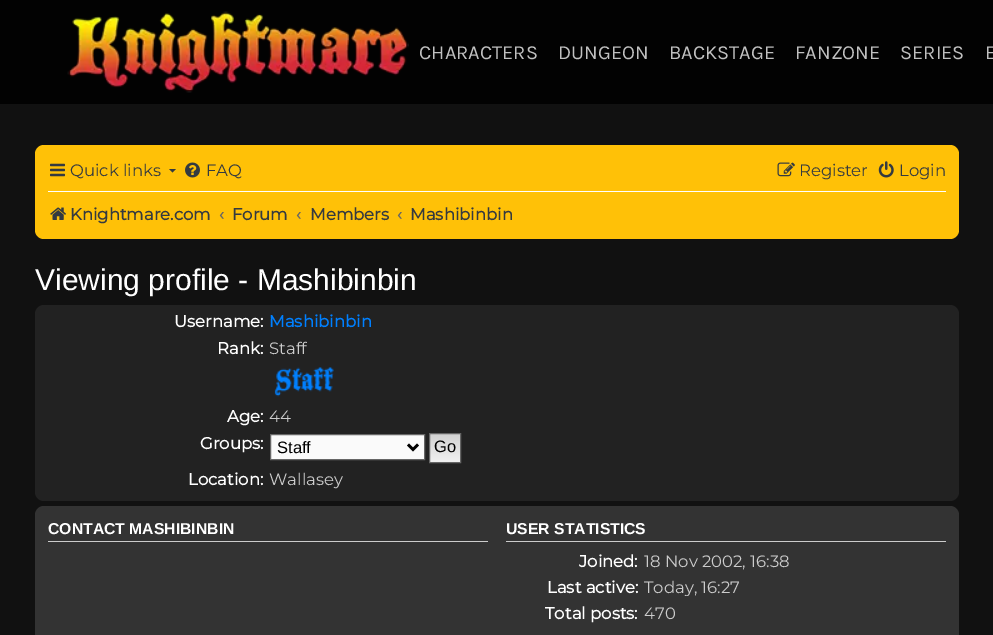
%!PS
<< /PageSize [993 635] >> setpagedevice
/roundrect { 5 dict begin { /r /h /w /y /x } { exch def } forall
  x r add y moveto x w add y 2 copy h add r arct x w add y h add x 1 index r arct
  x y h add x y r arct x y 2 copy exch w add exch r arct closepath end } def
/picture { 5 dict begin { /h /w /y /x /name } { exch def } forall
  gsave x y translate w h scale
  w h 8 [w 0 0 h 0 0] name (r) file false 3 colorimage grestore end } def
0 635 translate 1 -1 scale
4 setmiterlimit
0.067 setgray
0 0 993 635 rectfill
0.008 setgray
0 0 993 104 rectfill
(img1.rgb) 67 11 342 82 picture
/Karla-Regular [20 0 0 -20 0 0] selectfont
0.753 setgray
419 59 moveto (CHARACTERS) show
558 59 moveto (DUNGEON) show
669 59 moveto (BACKSTAGE) show
795 59 moveto (FANZONE) show
900 59 moveto (SERIES) show
985 59 moveto (E) show
1 0.757 0.027 setrgbcolor
35 145 924 94 9 roundrect fill
(img2.rgb) 50 163 15 14 picture
/Montserrat-Thin [16.5 0 0 -16.5 0 0] selectfont
0.204 0.227 0.251 setrgbcolor
70 176 moveto (Quick links) show
newpath 169 169 moveto 176 169 lineto 172.5 172.5 lineto closepath fill
(img3.rgb) 185 162 15 16 picture
206 176 moveto (FAQ) show
(img4.rgb) 777 162 18 15 picture
799 176 moveto (Register) show
(img5.rgb) 878 161 16 17 picture
899 176 moveto (Login) show
1 setgray
48 191 898 1 rectfill
(img6.rgb) 50 207 16 13 picture
/Montserrat-Bold [16.5 0 0 -16.5 0 0] selectfont
0.204 0.227 0.251 setrgbcolor
70 220 moveto (Knightmare.com) show
0.4 setgray
219 220 moveto (‹) show
0.204 0.227 0.251 setrgbcolor
232 220 moveto (Forum) show
0.4 setgray
296 220 moveto (‹) show
0.204 0.227 0.251 setrgbcolor
310 220 moveto (Members) show
0.4 setgray
397 220 moveto (‹) show
0.204 0.227 0.251 setrgbcolor
410 220 moveto (Mashibinbin) show
/LiberationSans-Regular [30 0 0 -30 0 0] selectfont
1 setgray
35 290 moveto (Viewing profile - Mashibinbin) show
0.133 setgray
35 305 924 196 9 roundrect fill
/Montserrat-Bold [16.5 0 0 -16.5 0 0] selectfont
1 setgray
174 327 moveto (Username:) show
0 0.502 1 setrgbcolor
269 327 moveto (Mashibinbin) show
1 setgray
217 354 moveto (Rank:) show
/Montserrat-Thin [16.5 0 0 -16.5 0 0] selectfont
0.8 setgray
269 354 moveto (Staff) show
(img7.rgb) 274 367 60 30 picture
/Montserrat-Bold [16.5 0 0 -16.5 0 0] selectfont
1 setgray
227 422 moveto (Age:) show
/Montserrat-Thin [16.5 0 0 -16.5 0 0] selectfont
0.8 setgray
269 422 moveto (44) show
/Montserrat-Bold [16.5 0 0 -16.5 0 0] selectfont
1 setgray
200 449 moveto (Groups:) show
0.98 setgray
newpath 270.5 434.5 moveto 424.5 434.5 lineto 424.5 459.5 lineto 270.5 459.5 lineto closepath gsave fill grestore
0.4 setgray
stroke
0 setgray
2.5 setlinewidth
newpath 408 444.5 moveto 413 449.5 lineto 418 444.5 lineto stroke
/LiberationSans-Regular [16.5 0 0 -16.5 0 0] selectfont
277 453 moveto (Staff) show
0.937 setgray
430 461 30 1 rectfill
gsave newpath 430 434 moveto 460 434 lineto 460 461 lineto 430 461 lineto closepath clip newpath
<< /ShadingType 2 /ColorSpace /DeviceRGB /Coords [445 434 445 461] /Extend [true true] /Function << /FunctionType 2 /Domain [0 1] /C0 [0.824 0.824 0.824] /C1 [0.937 0.937 0.937] /N 1 >> >> shfill grestore
0.4 setgray
1 setlinewidth
429.5 433.5 31 29 rectstroke
0 setgray
434 452 moveto (Go) show
/Montserrat-Bold [16.5 0 0 -16.5 0 0] selectfont
1 setgray
188 485 moveto (Location:) show
/Montserrat-Thin [16.5 0 0 -16.5 0 0] selectfont
0.8 setgray
269 485 moveto (Wallasey) show
0.2 setgray
35 506 924 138 9 roundrect fill
0.8 setgray
48 541 440 1 rectfill
/LiberationSans-Bold [15.75 0 0 -15.75 0 0] selectfont
1 setgray
48 534 moveto (CONTACT MASHIBINBIN) show
0.8 setgray
506 541 440 1 rectfill
1 setgray
506 534 moveto (USER STATISTICS) show
/Montserrat-Bold [16.5 0 0 -16.5 0 0] selectfont
579 567 moveto (Joined:) show
/Montserrat-Thin [16.5 0 0 -16.5 0 0] selectfont
0.8 setgray
644 567 moveto (18 Nov 2002, 16:38) show
/Montserrat-Bold [16.5 0 0 -16.5 0 0] selectfont
1 setgray
547 593 moveto (Last active:) show
gsave
638 576 286 20 rectclip
/Montserrat-Thin [16.5 0 0 -16.5 0 0] selectfont
0.8 setgray
644 593 moveto (Today, 16:27) show
grestore
545 619 moveto (Total posts:) show
/Montserrat-Thin [16.5 0 0 -16.5 0 0] selectfont
0.8 setgray
644 619 moveto (470) show
showpage
